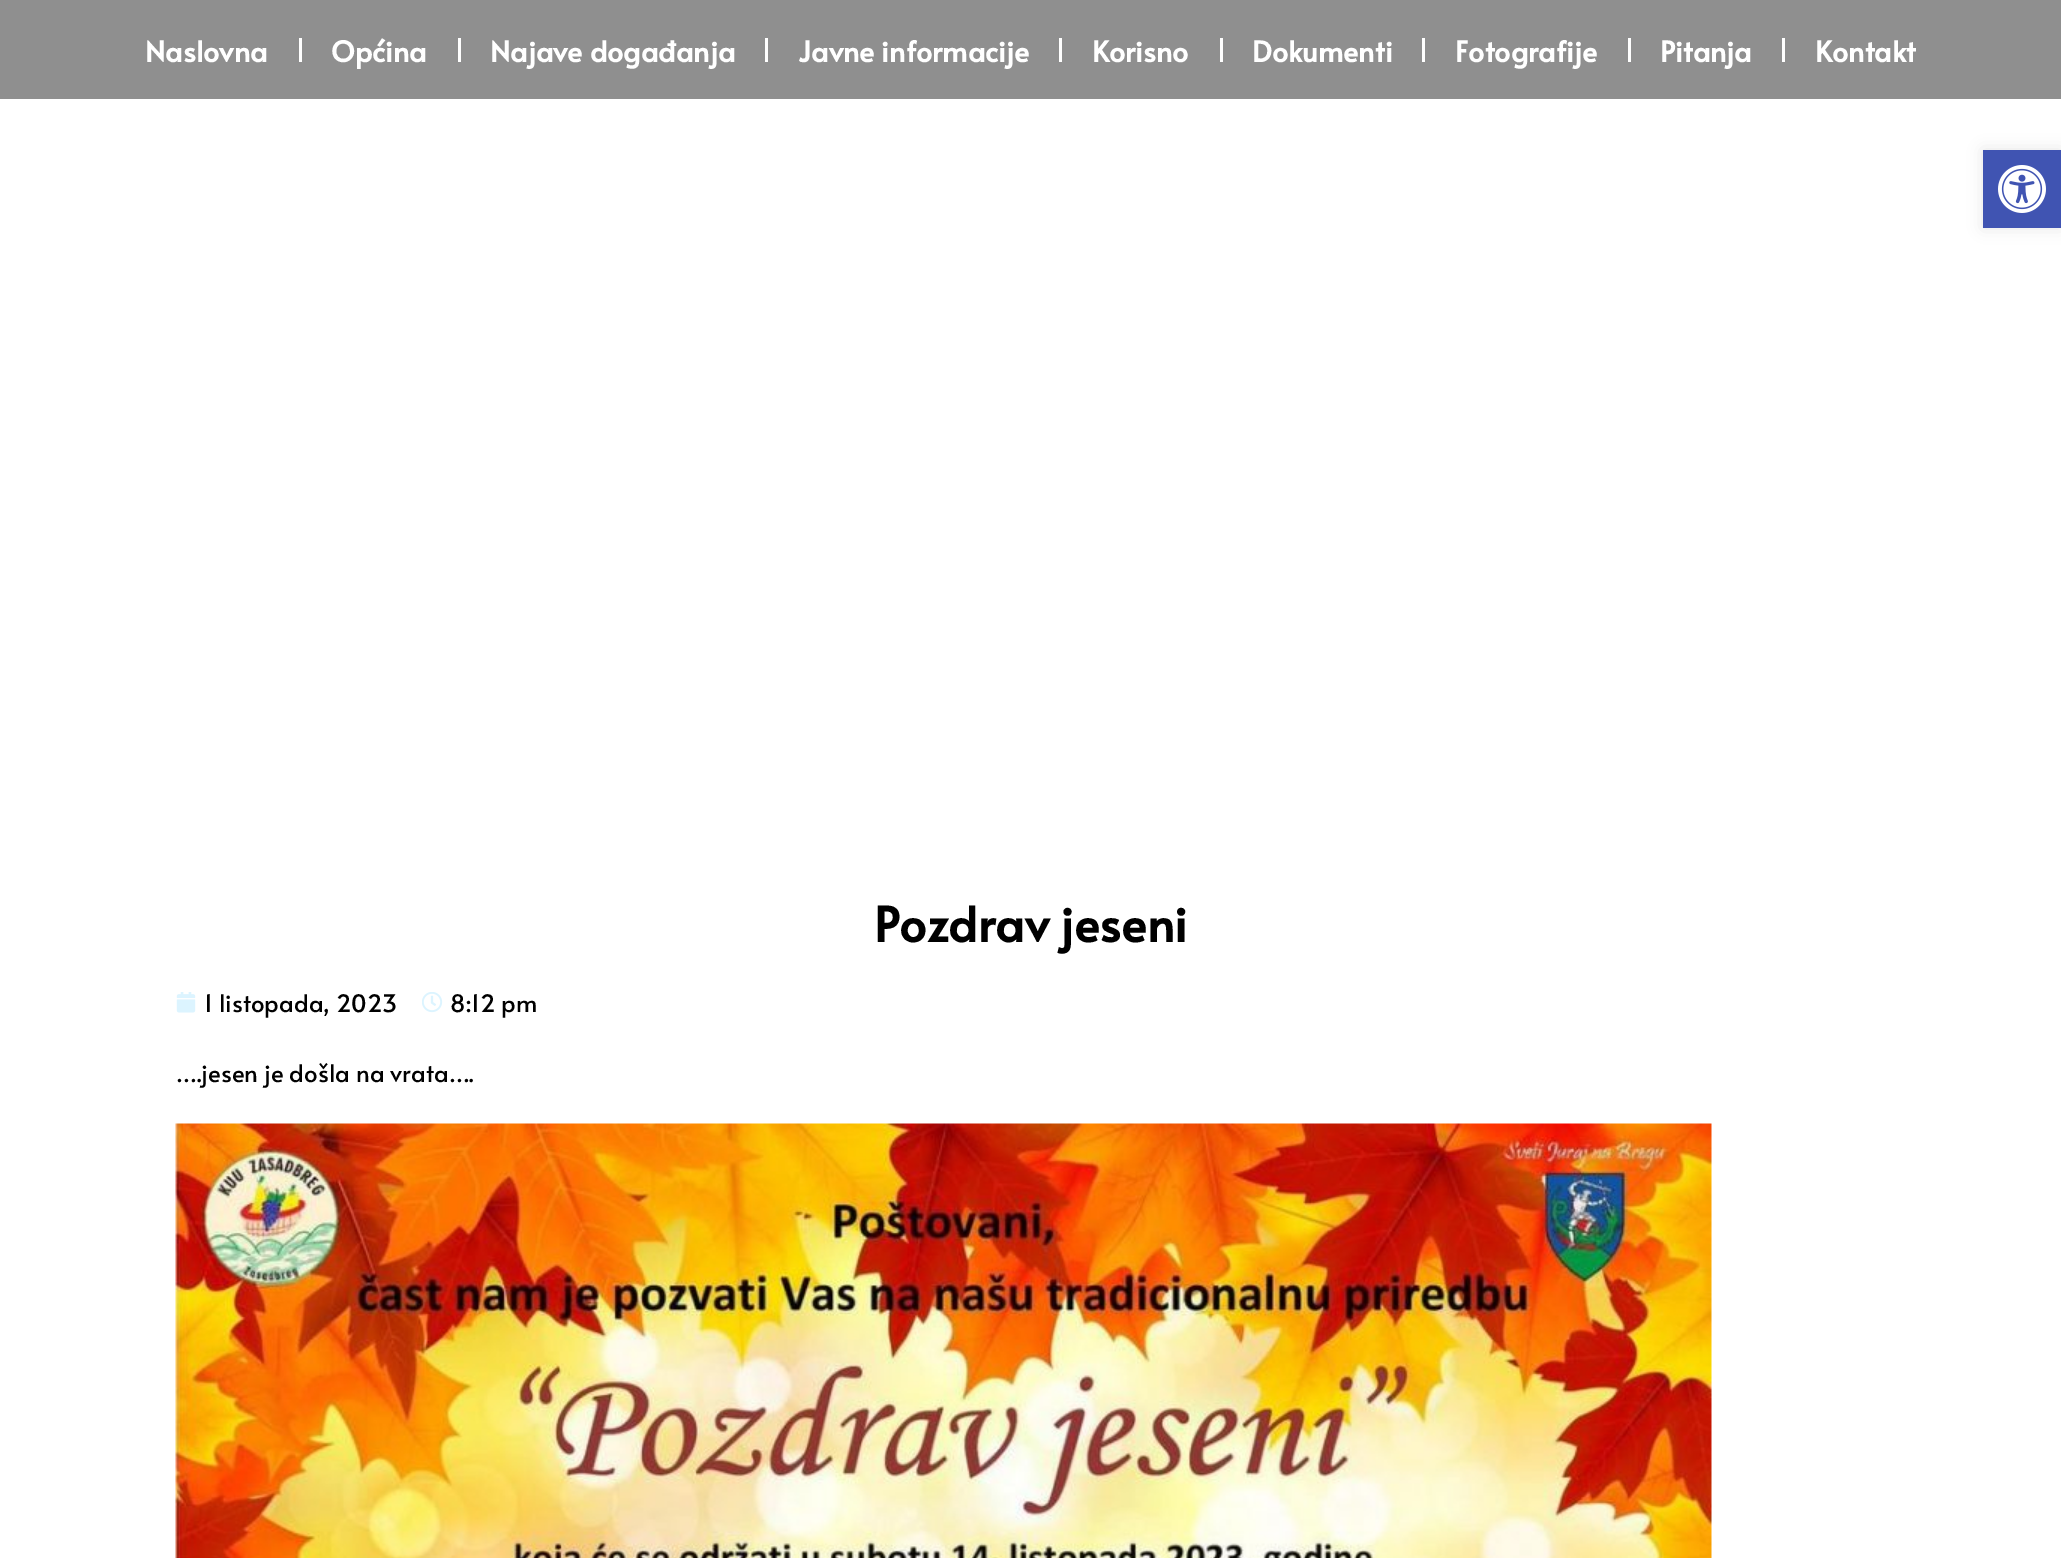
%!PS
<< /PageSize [2061 1558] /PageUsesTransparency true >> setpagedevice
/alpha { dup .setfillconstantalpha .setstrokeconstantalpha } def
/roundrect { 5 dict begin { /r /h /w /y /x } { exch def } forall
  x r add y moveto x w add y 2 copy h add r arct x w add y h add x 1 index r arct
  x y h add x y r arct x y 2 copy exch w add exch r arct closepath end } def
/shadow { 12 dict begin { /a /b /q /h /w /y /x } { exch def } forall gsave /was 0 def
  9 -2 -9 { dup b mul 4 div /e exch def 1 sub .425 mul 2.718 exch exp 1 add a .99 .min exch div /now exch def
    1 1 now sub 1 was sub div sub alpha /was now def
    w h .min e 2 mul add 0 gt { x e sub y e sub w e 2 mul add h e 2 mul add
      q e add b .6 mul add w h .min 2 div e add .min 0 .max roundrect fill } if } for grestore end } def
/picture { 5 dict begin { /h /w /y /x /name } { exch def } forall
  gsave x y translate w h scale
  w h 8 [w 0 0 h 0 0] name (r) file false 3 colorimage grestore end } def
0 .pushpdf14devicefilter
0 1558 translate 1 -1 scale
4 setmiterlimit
1 setgray
0 0 2061 1558 rectfill
0.561 setgray
0 0 2061 99 rectfill
/Alata-Bold [28.5 0 0 -28.5 0 0] selectfont
1 setgray
145 62 moveto (Naslovna) show
299 38 3 24 rectfill
331 62 moveto (Općina) show
458 38 3 24 rectfill
490 62 moveto (Najave događanja) show
765 38 3 24 rectfill
798 62 moveto (Javne informacije) show
1059 38 3 24 rectfill
1092 62 moveto (Korisno) show
1220 38 3 24 rectfill
1252 62 moveto (Dokumenti) show
1422 38 3 24 rectfill
1455 62 moveto (Fotografije) show
1628 38 3 24 rectfill
1660 62 moveto (Pitanja) show
1782 38 3 24 rectfill
1815 62 moveto (Kontakt) show
/Alata-Bold [48 0 0 -48 0 0] selectfont
0 setgray
874 942 moveto (Pozdrav jeseni) show
(img1.rgb) 176 992 20 21 picture
/Alata-Regular [24 0 0 -24 0 0] selectfont
204 1012 moveto (1 listopada, 2023) show
(img2.rgb) 422 992 21 21 picture
450 1012 moveto (8:12 pm) show
176 1082 moveto (….jesen je došla na vrata….) show
(img3.rgb) 175 1123 1537 435 picture
1983 150 78 78 0 7.5 0.1 shadow
0.251 0.329 0.698 setrgbcolor
1983 150 78 78 rectfill
(img4.rgb) 1998 165 48 48 picture
.poppdf14devicefilter showpage
